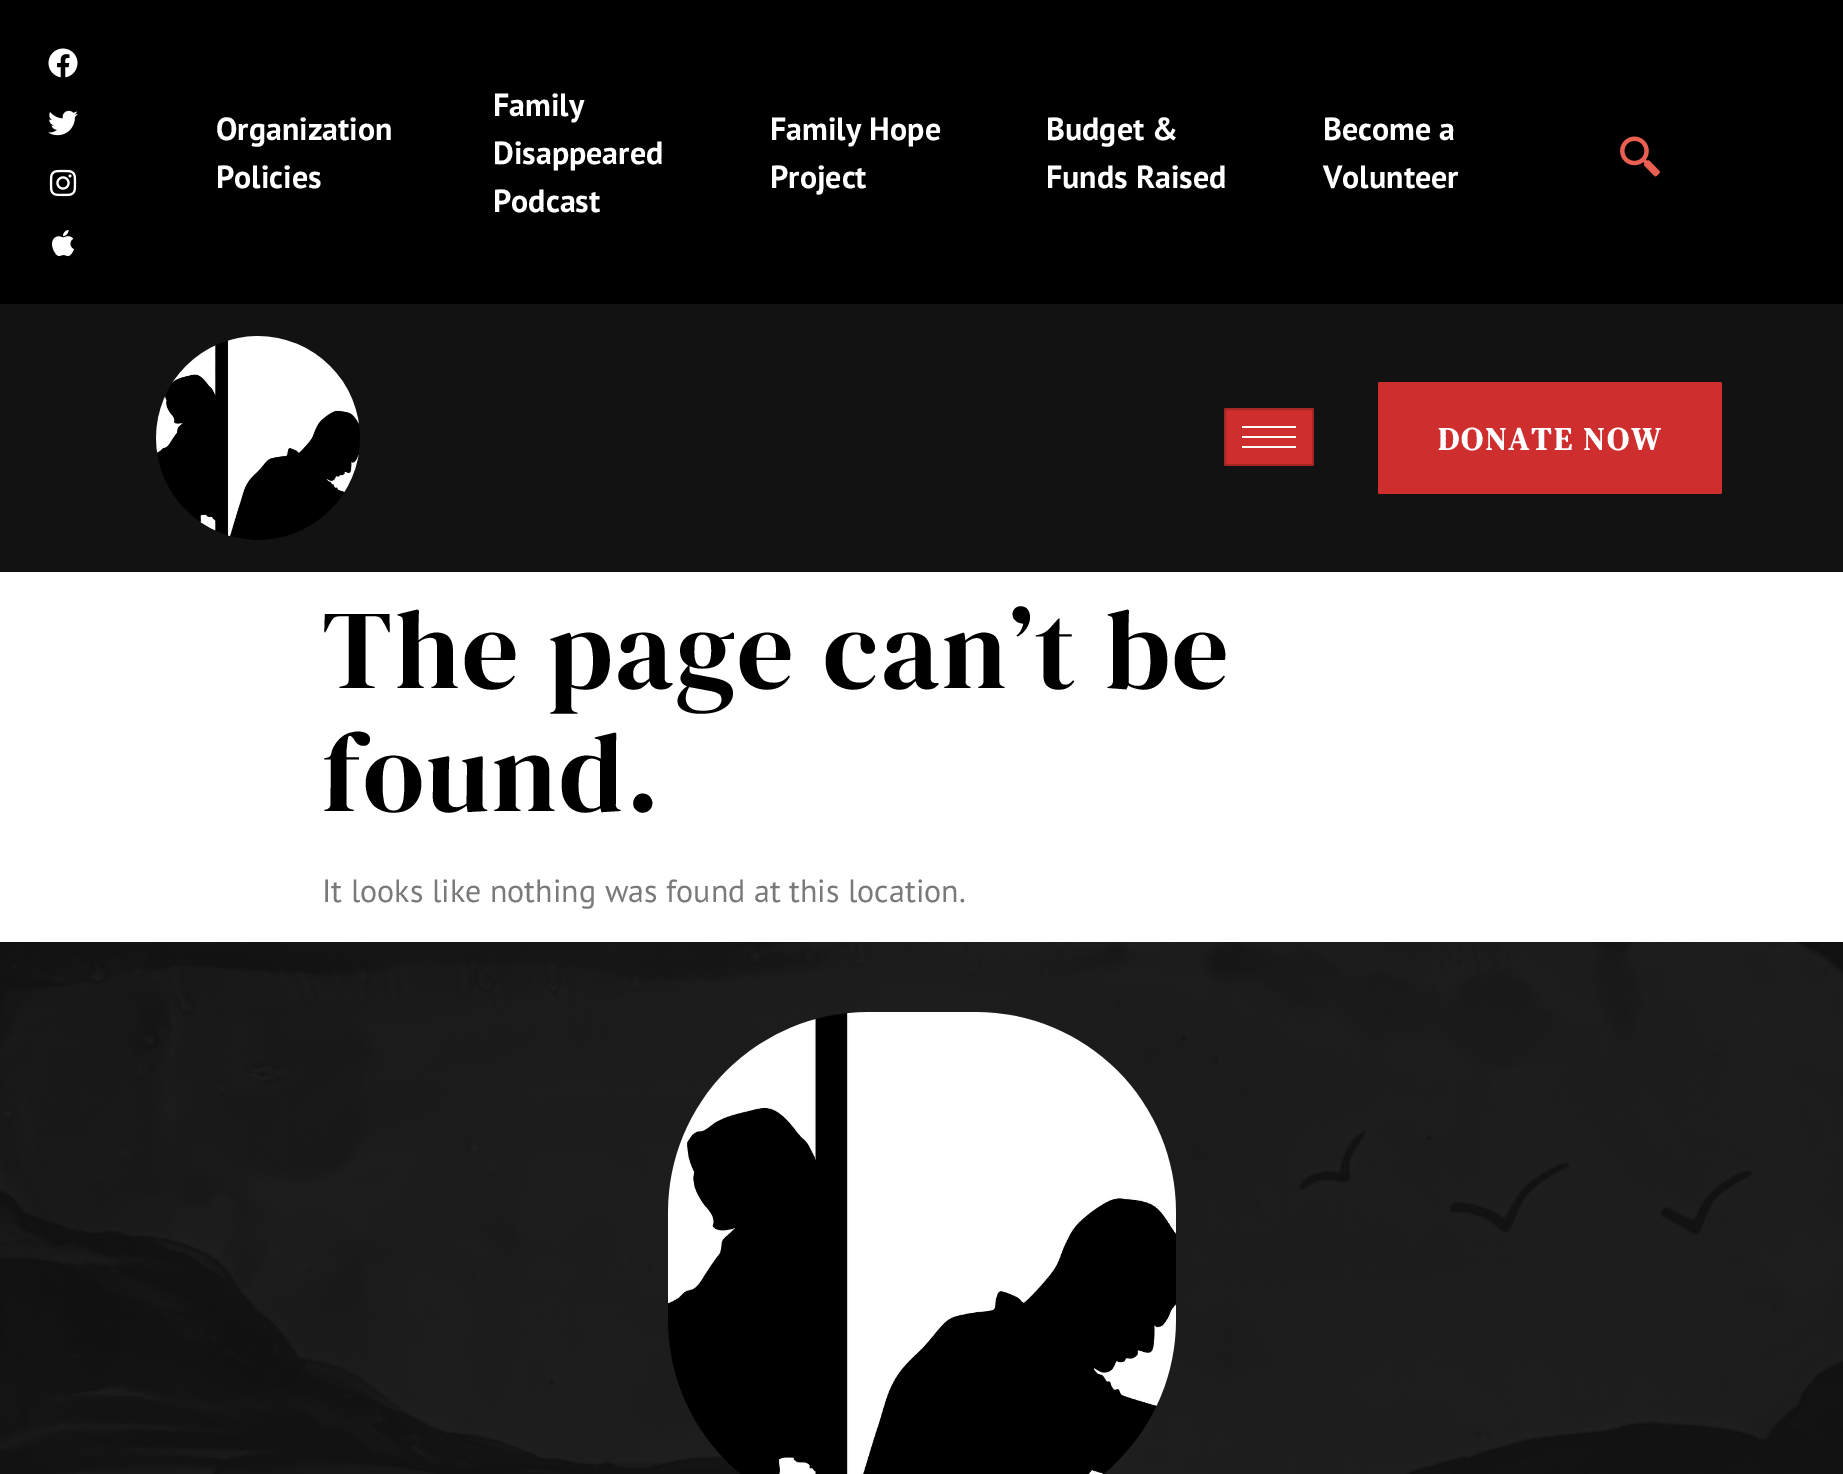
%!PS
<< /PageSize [1843 1474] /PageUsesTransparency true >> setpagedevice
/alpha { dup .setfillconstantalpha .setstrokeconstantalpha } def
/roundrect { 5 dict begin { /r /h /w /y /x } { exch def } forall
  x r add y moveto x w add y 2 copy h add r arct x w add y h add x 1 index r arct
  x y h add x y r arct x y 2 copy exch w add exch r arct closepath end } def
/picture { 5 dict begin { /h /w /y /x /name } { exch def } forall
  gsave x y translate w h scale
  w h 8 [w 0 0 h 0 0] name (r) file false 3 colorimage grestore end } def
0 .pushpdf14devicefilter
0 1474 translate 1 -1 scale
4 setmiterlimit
1 setgray
0 0 1843 1474 rectfill
0 setgray
0 0 1843 304 rectfill
(img1.rgb) 48 48 30 30 picture
(img2.rgb) 48 110 30 26 picture
(img3.rgb) 49 169 28 28 picture
(img4.rgb) 52 229 22 28 picture
/PTSans-Bold [32 0 0 -32 0 0] selectfont
1 setgray
216 140 moveto (Organization) show
216 188 moveto (Policies) show
493 116 moveto (Family) show
493 164 moveto (Disappeared) show
493 212 moveto (Podcast) show
770 140 moveto (Family Hope) show
770 188 moveto (Project) show
1046 140 moveto (Budget &) show
1046 188 moveto (Funds Raised) show
1323 140 moveto (Become a) show
1323 188 moveto (Volunteer) show
(img5.rgb) 1620 136 40 41 picture
0.071 setgray
0 304 1843 268 rectfill
(img6.rgb) 156 336 204 204 picture
0.812 0.18 0.18 setrgbcolor
1224 408 90 58 2 roundrect fill
0.2 alpha
0 setgray
2 setlinewidth
1225 409 88 56 1 roundrect stroke
1 alpha
1 setgray
1242 426 54 2 rectfill
1242 436 54 2 rectfill
1242 446 54 2 rectfill
0.812 0.18 0.18 setrgbcolor
1378 382 344 112 2 roundrect fill
/DMSerifText-Bold [32 0 0 -32 0 0] selectfont
1 setgray
1438 450 moveto 2.4 0 (DONATE NOW) ashow
/DMSerifDisplay-Regular [112 0 0 -112 0 0] selectfont
0 setgray
322 688 moveto 2.4 0 (The page can’t be) ashow
322 811 moveto 2.4 0 (found.) ashow
/PTSans-Regular [32 0 0 -32 0 0] selectfont
0.478 setgray
322 902 moveto (It looks like nothing was found at this location.) show
0.071 setgray
0 942 1843 532 rectfill
(img7.rgb) 0 942 1843 532 picture
(img8.rgb) 668 1012 508 462 picture
.poppdf14devicefilter showpage
